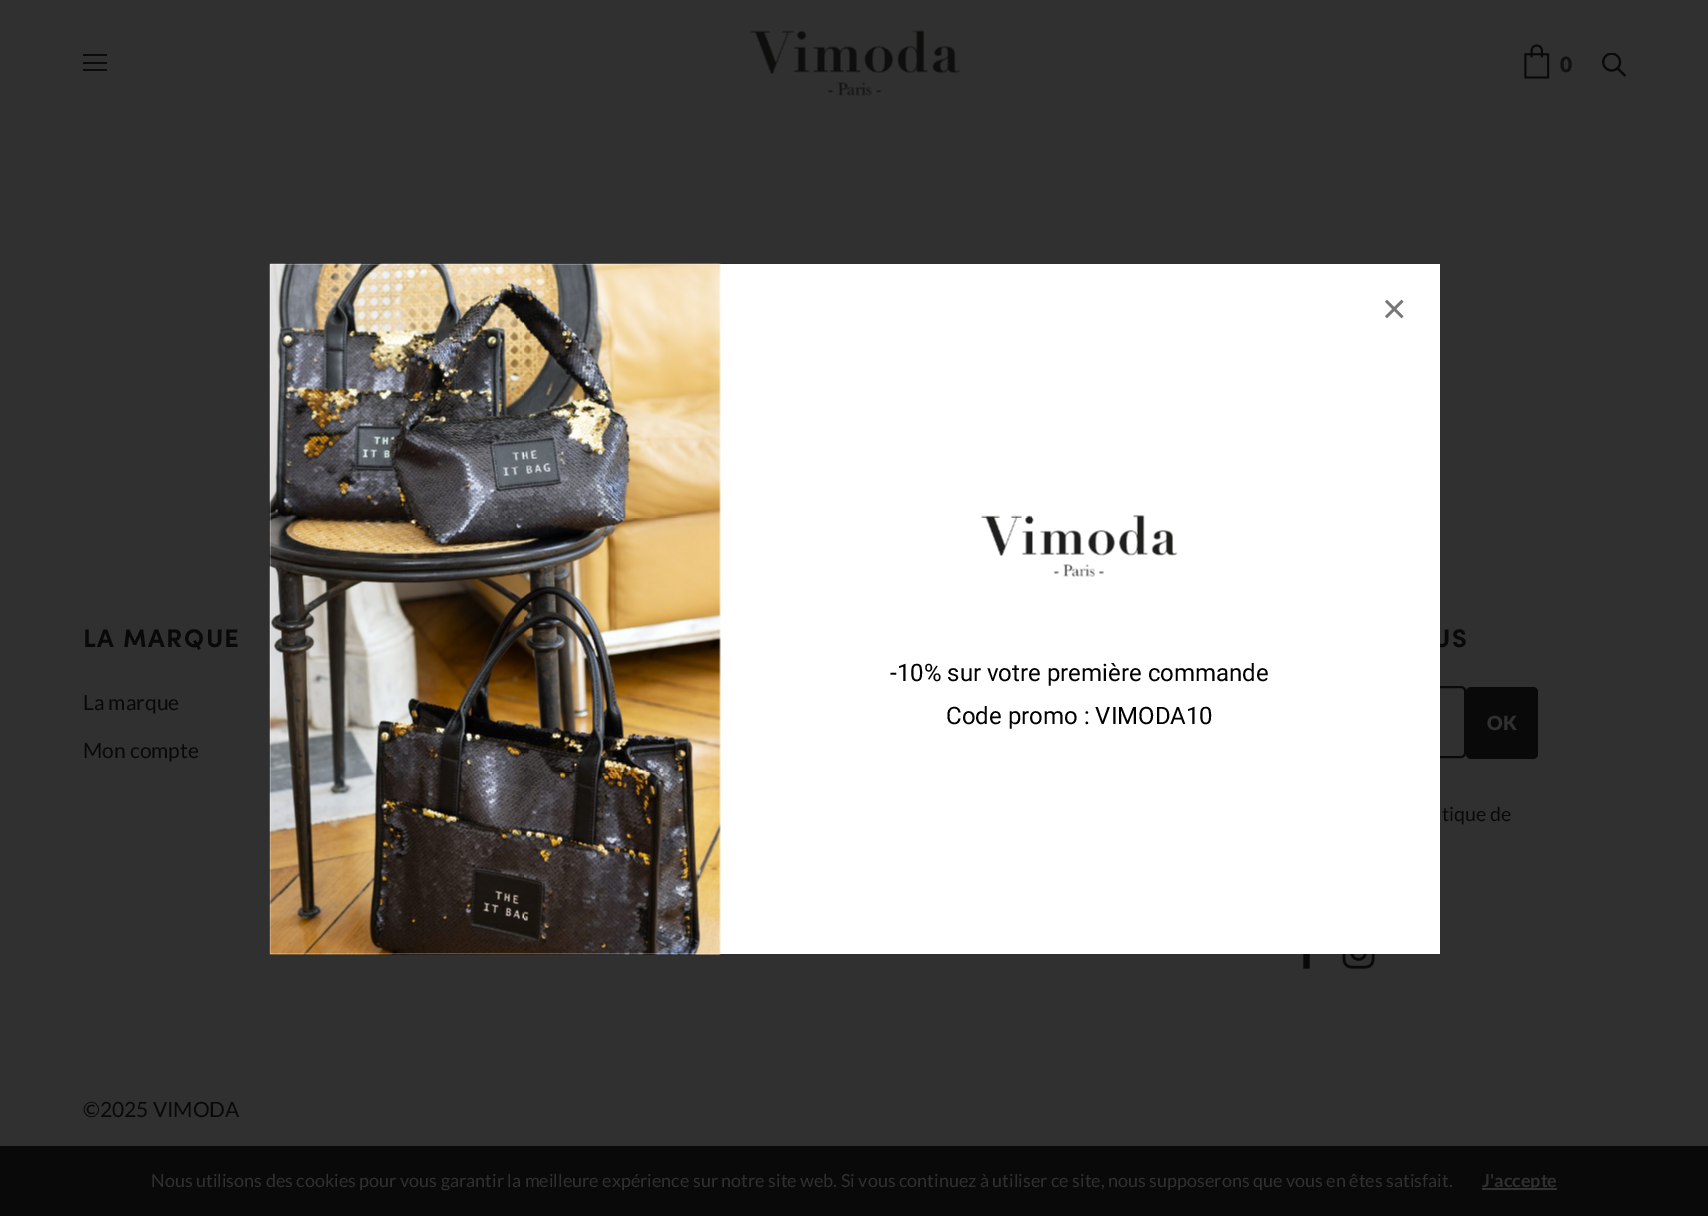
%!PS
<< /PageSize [1708 1216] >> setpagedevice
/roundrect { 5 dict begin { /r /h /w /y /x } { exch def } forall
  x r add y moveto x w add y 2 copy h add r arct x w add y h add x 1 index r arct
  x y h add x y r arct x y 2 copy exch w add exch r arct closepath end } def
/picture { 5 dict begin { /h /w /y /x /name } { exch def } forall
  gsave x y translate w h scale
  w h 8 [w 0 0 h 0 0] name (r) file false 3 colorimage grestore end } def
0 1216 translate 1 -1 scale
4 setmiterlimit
0.188 setgray
0 0 1708 1216 rectfill
0.043 setgray
83 54 24 2 rectfill
83 62 24 2 rectfill
83 69 24 2 rectfill
(img1.rgb) 750 30 210 66 picture
(img2.rgb) 1524 44 26 35 picture
/Lato-Black [21 0 0 -21 0 0] selectfont
0.067 setgray
1560 72 moveto (0) show
(img3.rgb) 1602 53 24 24 picture
/Sofia-Bold [25.5 0 0 -25.5 0 0] selectfont
0.035 setgray
83 647 moveto 1.5 0 (LA MARQUE) ashow
/Lato-Regular [21 0 0 -21 0 0] selectfont
83 710 moveto (La marque) show
83 758 moveto (Mon compte) show
/Sofia-Bold [25.5 0 0 -25.5 0 0] selectfont
1433 647 moveto 1.5 0 (US) ashow
2 setlinewidth
1287 687 178 70 4 roundrect stroke
1466 687 72 72 5 roundrect fill
/Lato-Black [19.5 0 0 -19.5 0 0] selectfont
0.188 setgray
1487 730 moveto (OK) show
/Lato-Regular [19.5 0 0 -19.5 0 0] selectfont
0.035 setgray
1442 821 moveto (tique de) show
(img4.rgb) 1303 954 7 15 picture
(img5.rgb) 1342 954 33 15 picture
/Lato-Regular [21 0 0 -21 0 0] selectfont
83 1117 moveto (©2025 VIMODA) show
0 1146 1708 70 rectfill
/Lato-Regular [18 0 0 -18 0 0] selectfont
0.188 setgray
151 1187 moveto (Nous utilisons des cookies pour vous garantir la meilleure expérience sur notre site web. Si vous continuez à utiliser ce site, nous supposerons que vous en êtes satisfait.) show
1482 1188 75 2 rectfill
/Lato-Bold [18 0 0 -18 0 0] selectfont
1482 1187 moveto (J'accepte) show
1 setgray
270 264 1170 690 rectfill
(img6.rgb) 269 263 452 692 picture
/LiberationSans-Regular [42 0 0 -42 0 0] selectfont
0.467 setgray
1382 323 moveto (×) show
(img7.rgb) 981 515 197 62 picture
/Roboto-Regular [24 0 0 -24 0 0] selectfont
0 setgray
890 681 moveto (-10% sur votre première commande) show
946 724 moveto (Code promo : VIMODA10) show
showpage
